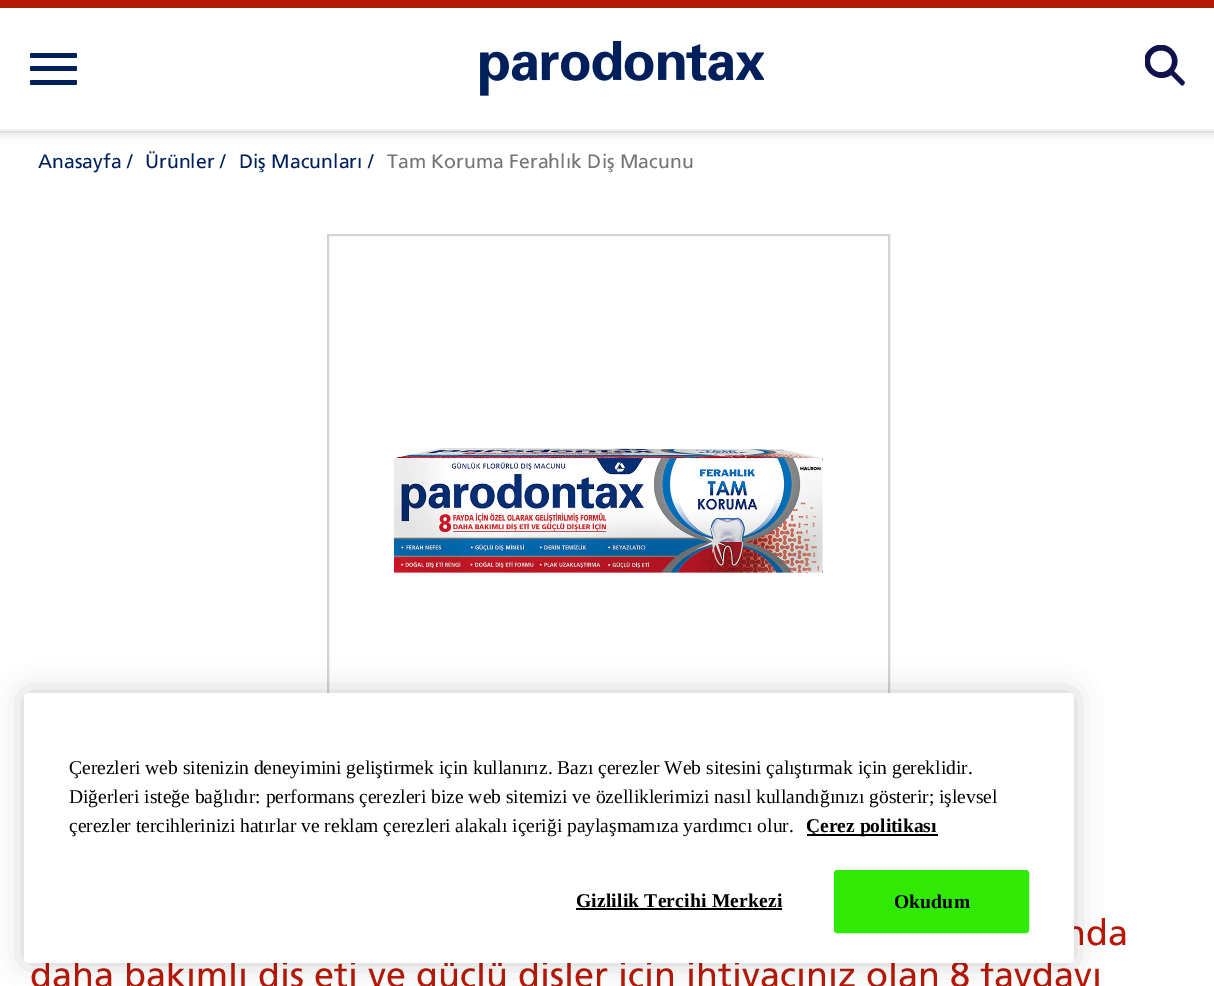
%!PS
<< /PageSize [1214 986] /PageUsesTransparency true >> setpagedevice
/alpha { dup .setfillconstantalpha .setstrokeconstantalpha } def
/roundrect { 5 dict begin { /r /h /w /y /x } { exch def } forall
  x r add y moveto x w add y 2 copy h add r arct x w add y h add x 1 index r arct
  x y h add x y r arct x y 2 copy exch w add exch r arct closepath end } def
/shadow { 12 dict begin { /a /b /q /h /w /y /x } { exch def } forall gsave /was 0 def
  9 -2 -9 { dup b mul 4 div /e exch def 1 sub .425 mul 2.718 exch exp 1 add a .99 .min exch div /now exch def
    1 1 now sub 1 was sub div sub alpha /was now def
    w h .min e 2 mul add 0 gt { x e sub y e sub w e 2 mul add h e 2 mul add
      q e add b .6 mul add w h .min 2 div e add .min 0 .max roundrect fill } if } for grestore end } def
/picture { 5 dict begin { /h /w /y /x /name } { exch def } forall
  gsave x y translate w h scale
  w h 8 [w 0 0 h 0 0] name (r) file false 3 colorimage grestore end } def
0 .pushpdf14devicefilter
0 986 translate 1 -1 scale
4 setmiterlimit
1 setgray
0 0 1214 986 rectfill
0.718 0.094 0.027 setrgbcolor
0 0 1214 8 rectfill
0.949 setgray
0 131 1214 2 rectfill
0 setgray
-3 8 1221 129 0 3 0.07 shadow
1 setgray
0 8 1214 121 rectfill
0.949 setgray
0 129 1214 2 rectfill
0 0.125 0.357 setrgbcolor
30 66 47 5 1.5 roundrect fill
30 53 47 5 1.5 roundrect fill
30 80 47 5 1.5 roundrect fill
(img1.rgb) 480 41 284 55 picture
gsave
1145 45 40 41 rectclip
0.063 0.071 0.302 setrgbcolor
newpath 1184 81 moveto 1174 71 lineto 1186 55 1164 35 1149 50 curveto 1135 64 1155 86 1171 75 curveto 1181 85 lineto 1183 87 1186 83 1184 81 curveto closepath 1150 61 moveto 1150 47 1172 47 1172 61 curveto 1172 76 1150 76 1150 61 curveto closepath fill
grestore
/Frutiger-Regular [19.5 0 0 -19.5 0 0] selectfont
38 168 moveto (Anasayfa /) show
145 168 moveto (Ürünler /) show
239 168 moveto (Diş Macunları /) show
0.459 setgray
387 168 moveto (Tam Koruma Ferahlık Diş Macunu) show
0.827 setgray
2 setlinewidth
328 235 561 561 rectstroke
(img2.rgb) 394 448 429 125 picture
/Frutiger-Regular [36 0 0 -36 0 0] selectfont
0.718 0.094 0.027 setrgbcolor
1064 945 moveto (nda) show
30 987 moveto (daha bakımlı diş eti ve güçlü dişler için ihtiyacınız olan 8 faydayı) show
0 setgray
24 693 1050 270 4 13.5 0.2 shadow
1 setgray
24 693 1050 270 4 roundrect fill
/LiberationSerif-Regular [19.5 0 0 -19.5 0 0] selectfont
0 setgray
69 774 moveto (Çerezleri web sitenizin deneyimini geliştirmek için kullanırız. Bazı çerezler Web sitesini çalıştırmak için gereklidir.) show
69 803 moveto (Diğerleri isteğe bağlıdır: performans çerezleri bize web sitemizi ve özelliklerimizi nasıl kullandığınızı gösterir; işlevsel) show
69 832 moveto (çerezler tercihlerinizi hatırlar ve reklam çerezleri alakalı içeriği paylaşmamıza yardımcı olur.) show
807 834 131 2 rectfill
/LiberationSerif-Bold [19.5 0 0 -19.5 0 0] selectfont
806 832 moveto (Çerez politikası) show
576 907 moveto 0.2 0 (Gizlilik Tercihi Merkezi) ashow
576 908 206 2 rectfill
0.188 0.918 0.012 setrgbcolor
835 871 193 61 2 roundrect gsave fill grestore
stroke
0 setgray
894 908 moveto 0.2 0 (Okudum) ashow
.poppdf14devicefilter showpage
